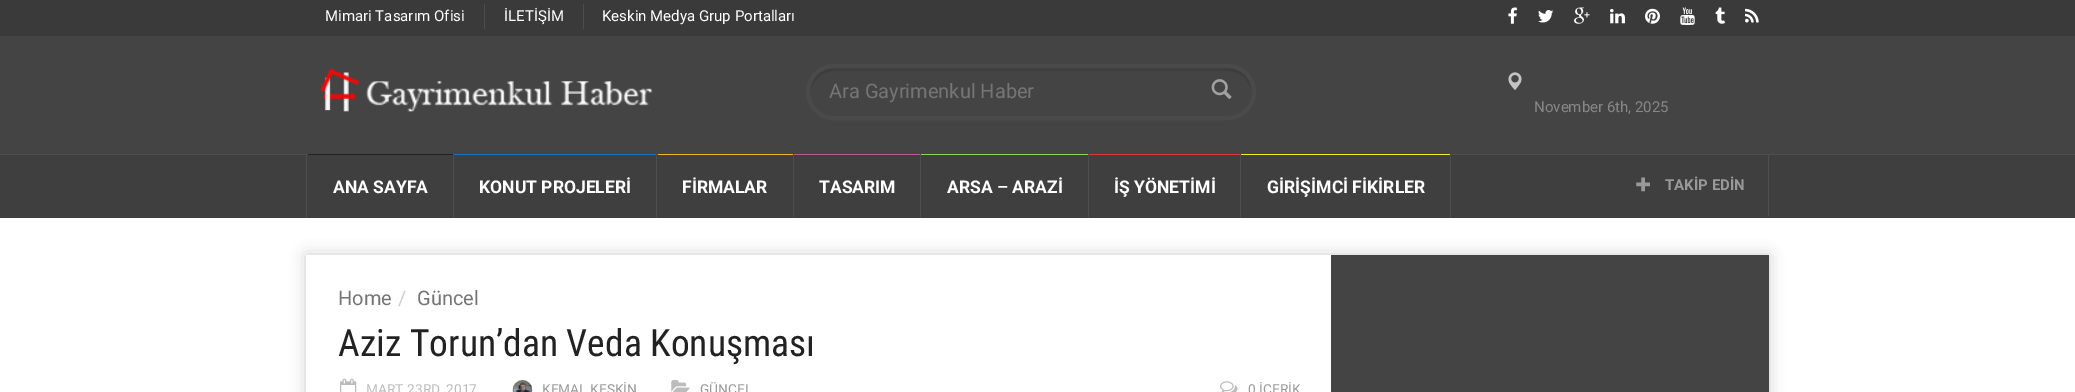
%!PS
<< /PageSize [2075 392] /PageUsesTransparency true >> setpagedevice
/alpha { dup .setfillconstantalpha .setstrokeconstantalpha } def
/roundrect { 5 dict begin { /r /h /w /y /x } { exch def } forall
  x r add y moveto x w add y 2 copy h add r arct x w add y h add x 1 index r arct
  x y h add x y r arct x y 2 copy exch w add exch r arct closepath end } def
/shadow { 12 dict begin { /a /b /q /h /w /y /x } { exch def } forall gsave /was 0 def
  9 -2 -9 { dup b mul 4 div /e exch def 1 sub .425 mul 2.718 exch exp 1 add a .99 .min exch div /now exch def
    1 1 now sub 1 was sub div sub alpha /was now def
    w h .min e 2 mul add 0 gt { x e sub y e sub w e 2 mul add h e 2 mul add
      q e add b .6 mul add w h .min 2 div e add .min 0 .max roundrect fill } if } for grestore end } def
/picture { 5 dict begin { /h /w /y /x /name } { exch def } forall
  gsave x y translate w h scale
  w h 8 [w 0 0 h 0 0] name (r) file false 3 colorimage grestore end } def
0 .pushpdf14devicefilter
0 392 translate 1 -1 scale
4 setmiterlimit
1 setgray
0 0 2075 392 rectfill
0.227 setgray
0 0 2075 36 rectfill
/Roboto-Regular [15 0 0 -15 0 0] selectfont
1 setgray
325 21 moveto (Mimari Tasarım Ofisi) show
0.302 setgray
484 4 1 25 rectfill
1 setgray
504 21 moveto (İLETİŞİM) show
0.302 setgray
583 4 1 25 rectfill
1 setgray
602 21 moveto (Keskin Medya Grup Portalları) show
(img1.rgb) 1508 7 9 17 picture
(img2.rgb) 1538 10 16 13 picture
(img3.rgb) 1574 7 16 17 picture
(img4.rgb) 1610 9 15 15 picture
(img5.rgb) 1645 8 15 16 picture
(img6.rgb) 1680 7 15 18 picture
(img7.rgb) 1715 7 10 17 picture
(img8.rgb) 1745 8 14 15 picture
0.267 setgray
0 36 2075 118 rectfill
0.302 setgray
0 154 2075 1 rectfill
(img9.rgb) 319 68 334 44 picture
0.239 setgray
newpath 834 71 moveto 1228 71 lineto 1243 71 1254 85 1252 100 curveto 1253 97 1253 95 1253 92 curveto 1253 79 1242 68 1229 68 curveto 834 68 lineto 821 68 810 79 810 92 curveto 810 94 lineto 811 81 822 71 834 71 curveto closepath fill
0.29 setgray
4 setlinewidth
808 66 446 52 26 roundrect stroke
/Roboto-Regular [20 0 0 -20 0 0] selectfont
0.459 setgray
829 98 moveto (Ara Gayrimenkul Haber) show
(img10.rgb) 1211 79 21 20 picture
(img11.rgb) 1508 72 14 18 picture
/Roboto-Regular [15 0 0 -15 0 0] selectfont
0.529 setgray
1534 112 moveto (November 6th, 2025) show
0.247 setgray
0 155 2075 63 rectfill
0.302 setgray
306 154 1 64 rectfill
453 154 1 64 rectfill
0.133 setgray
308 154 145 1 rectfill
/Roboto-Bold [17.5 0 0 -17.5 0 0] selectfont
1 setgray
333 193 moveto (ANA SAYFA) show
0.302 setgray
656 154 1 64 rectfill
0.094 0.443 0.749 setrgbcolor
454 154 202 1 rectfill
1 setgray
479 193 moveto (KONUT PROJELERİ) show
0.302 setgray
793 154 1 64 rectfill
0.929 0.714 0.129 setrgbcolor
658 154 135 1 rectfill
1 setgray
682 193 moveto (FİRMALAR) show
0.302 setgray
920 154 1 64 rectfill
0.718 0.345 0.569 setrgbcolor
794 154 126 1 rectfill
1 setgray
819 193 moveto (TASARIM) show
0.302 setgray
1088 154 1 64 rectfill
0.545 0.839 0.333 setrgbcolor
921 154 167 1 rectfill
1 setgray
947 193 moveto (ARSA – ARAZİ) show
0.302 setgray
1240 154 1 64 rectfill
0.867 0.216 0.216 setrgbcolor
1089 154 151 1 rectfill
1 setgray
1114 193 moveto (İŞ YÖNETİMİ) show
0.302 setgray
1450 154 1 64 rectfill
0.933 0.933 0.133 setrgbcolor
1241 154 209 1 rectfill
1 setgray
1267 193 moveto (GİRİŞİMCİ FİKİRLER) show
0.302 setgray
1768 154 1 62 rectfill
(img12.rgb) 1636 177 14 15 picture
/Roboto-Bold [15 0 0 -15 0 0] selectfont
0.6 setgray
1665 190 moveto (TAKİP EDİN) show
0.8 setgray
306 255 1463 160 0 7.5 1 shadow
1 setgray
306 255 1025 137 rectfill
/Roboto-Regular [20 0 0 -20 0 0] selectfont
0.459 setgray
338 305 moveto (Home) show
0.8 setgray
398 305 moveto (/) show
0.459 setgray
417 305 moveto (Güncel) show
/RobotoCondensed-Regular [37.5 0 0 -37.5 0 0] selectfont
0.133 setgray
338 356 moveto (Aziz Torun’dan Veda Konuşması) show
(img13.rgb) 340 378 17 14 picture
/Roboto-Regular [13.75 0 0 -13.75 0 0] selectfont
0.737 setgray
366 394 moveto (MART 23RD, 2017) show
(img14.rgb) 512 380 21 12 picture
0.6 setgray
542 394 moveto (KEMAL KESKİN) show
(img15.rgb) 671 380 19 12 picture
700 394 moveto (GÜNCEL) show
(img16.rgb) 1220 381 18 11 picture
1248 394 moveto (0 İÇERİK) show
0.267 setgray
1331 255 438 137 rectfill
.poppdf14devicefilter showpage
